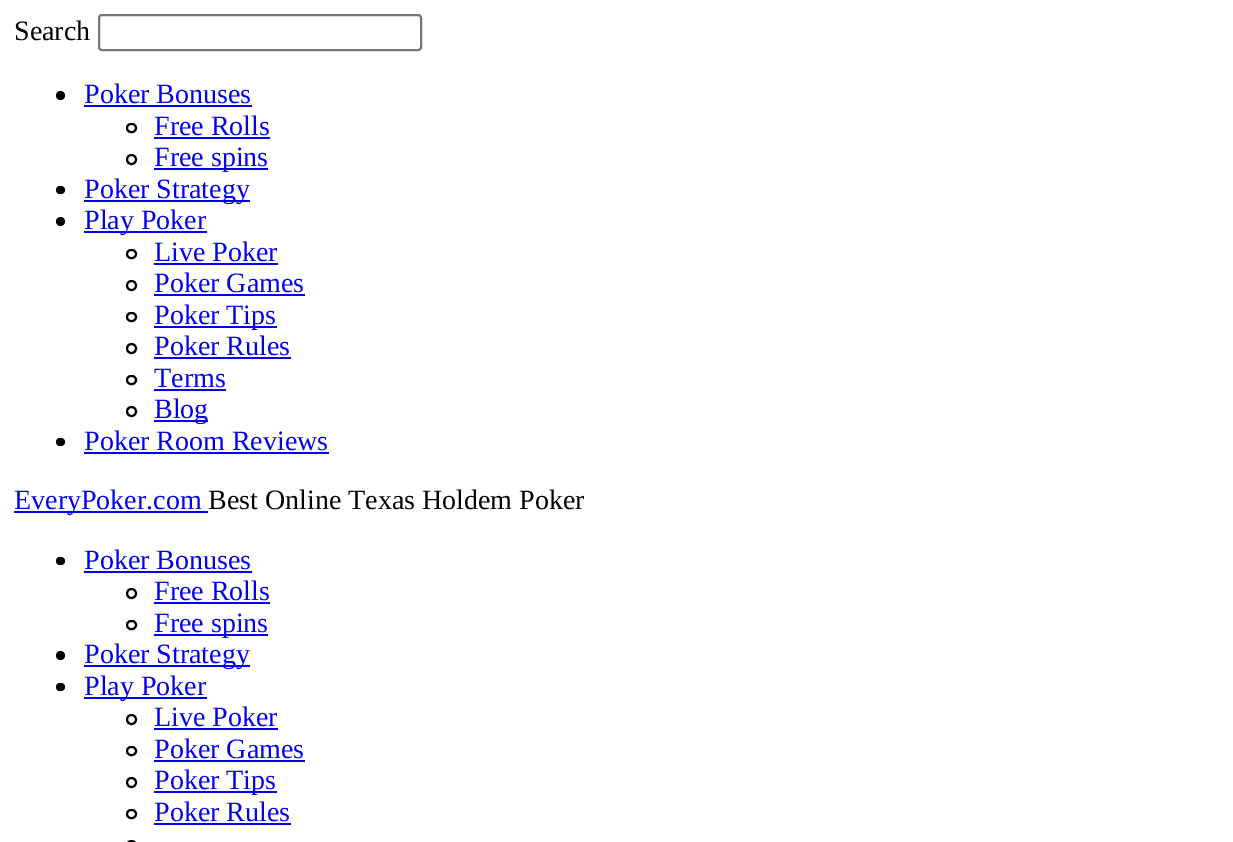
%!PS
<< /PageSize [1233 842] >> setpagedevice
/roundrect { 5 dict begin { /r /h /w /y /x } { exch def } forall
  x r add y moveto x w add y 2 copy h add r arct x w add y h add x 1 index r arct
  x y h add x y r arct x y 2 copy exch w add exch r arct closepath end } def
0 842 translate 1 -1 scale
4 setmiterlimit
1 setgray
0 0 1233 842 rectfill
/LiberationSerif-Regular [28 0 0 -28 0 0] selectfont
0 setgray
14 40 moveto (Search) show
0.463 setgray
2 setlinewidth
99 15 322 35 3 roundrect stroke
0 setgray
newpath 60.5 95.5 4.5 0 360 arc closepath fill
0 0 0.933 setrgbcolor
84 103 moveto (Poker Bonuses) show
84 105 168 2 rectfill
0 setgray
127 124 9 8 4 roundrect stroke
0 0 0.933 setrgbcolor
154 135 moveto (Free Rolls) show
154 137 116 2 rectfill
0 setgray
newpath 131.5 159.5 4.5 0 360 arc closepath stroke
0 0 0.933 setrgbcolor
154 168 114 2 rectfill
154 166 moveto (Free spins) show
0 setgray
56 186 9 8 4 roundrect fill
0 0 0.933 setrgbcolor
84 200 166 2 rectfill
84 198 moveto (Poker Strategy) show
0 setgray
newpath 60.5 221.5 4.5 0 360 arc closepath fill
0 0 0.933 setrgbcolor
84 231 123 2 rectfill
84 229 moveto (Play Poker) show
0 setgray
127 250 9 8 4 roundrect stroke
0 0 0.933 setrgbcolor
154 261 moveto (Live Poker) show
154 263 124 2 rectfill
0 setgray
newpath 131.5 285.5 4.5 0 360 arc closepath stroke
0 0 0.933 setrgbcolor
154 292 moveto (Poker Games) show
154 294 151 2 rectfill
0 setgray
127 313 9 8 4 roundrect stroke
0 0 0.933 setrgbcolor
154 326 123 2 rectfill
154 324 moveto (Poker Tips) show
0 setgray
newpath 131.5 348.5 4.5 0 360 arc closepath stroke
0 0 0.933 setrgbcolor
154 355 moveto (Poker Rules) show
154 357 137 2 rectfill
0 setgray
127 376 9 8 4 roundrect stroke
0 0 0.933 setrgbcolor
154 387 moveto (Terms) show
154 389 72 2 rectfill
0 setgray
newpath 131.5 411.5 4.5 0 360 arc closepath stroke
0 0 0.933 setrgbcolor
154 420 54 2 rectfill
154 418 moveto (Blog) show
0 setgray
56 438 9 8 4 roundrect fill
0 0 0.933 setrgbcolor
84 450 moveto (Poker Room Reviews) show
84 452 245 2 rectfill
14 511 194 2 rectfill
14 509 moveto (EveryPoker.com) show
0 setgray
208 509 moveto (Best Online Texas Holdem Poker) show
56 557 9 8 4 roundrect fill
0 0 0.933 setrgbcolor
84 569 moveto (Poker Bonuses) show
84 571 168 2 rectfill
0 setgray
newpath 131.5 593.5 4.5 0 360 arc closepath stroke
0 0 0.933 setrgbcolor
154 600 moveto (Free Rolls) show
154 602 116 2 rectfill
0 setgray
127 621 9 8 4 roundrect stroke
0 0 0.933 setrgbcolor
154 634 114 2 rectfill
154 632 moveto (Free spins) show
0 setgray
newpath 60.5 655.5 4.5 0 360 arc closepath fill
0 0 0.933 setrgbcolor
84 665 166 2 rectfill
84 663 moveto (Poker Strategy) show
0 setgray
56 683 9 8 4 roundrect fill
0 0 0.933 setrgbcolor
84 697 123 2 rectfill
84 695 moveto (Play Poker) show
0 setgray
newpath 131.5 719.5 4.5 0 360 arc closepath stroke
0 0 0.933 setrgbcolor
154 726 moveto (Live Poker) show
154 728 124 2 rectfill
0 setgray
127 747 9 8 4 roundrect stroke
0 0 0.933 setrgbcolor
154 758 moveto (Poker Games) show
154 760 151 2 rectfill
0 setgray
newpath 131.5 782.5 4.5 0 360 arc closepath stroke
0 0 0.933 setrgbcolor
154 791 123 2 rectfill
154 789 moveto (Poker Tips) show
0 setgray
127 810 9 8 4 roundrect stroke
0 0 0.933 setrgbcolor
154 821 moveto (Poker Rules) show
154 823 137 2 rectfill
0 setgray
127 841 9 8 4.5 roundrect stroke
showpage
